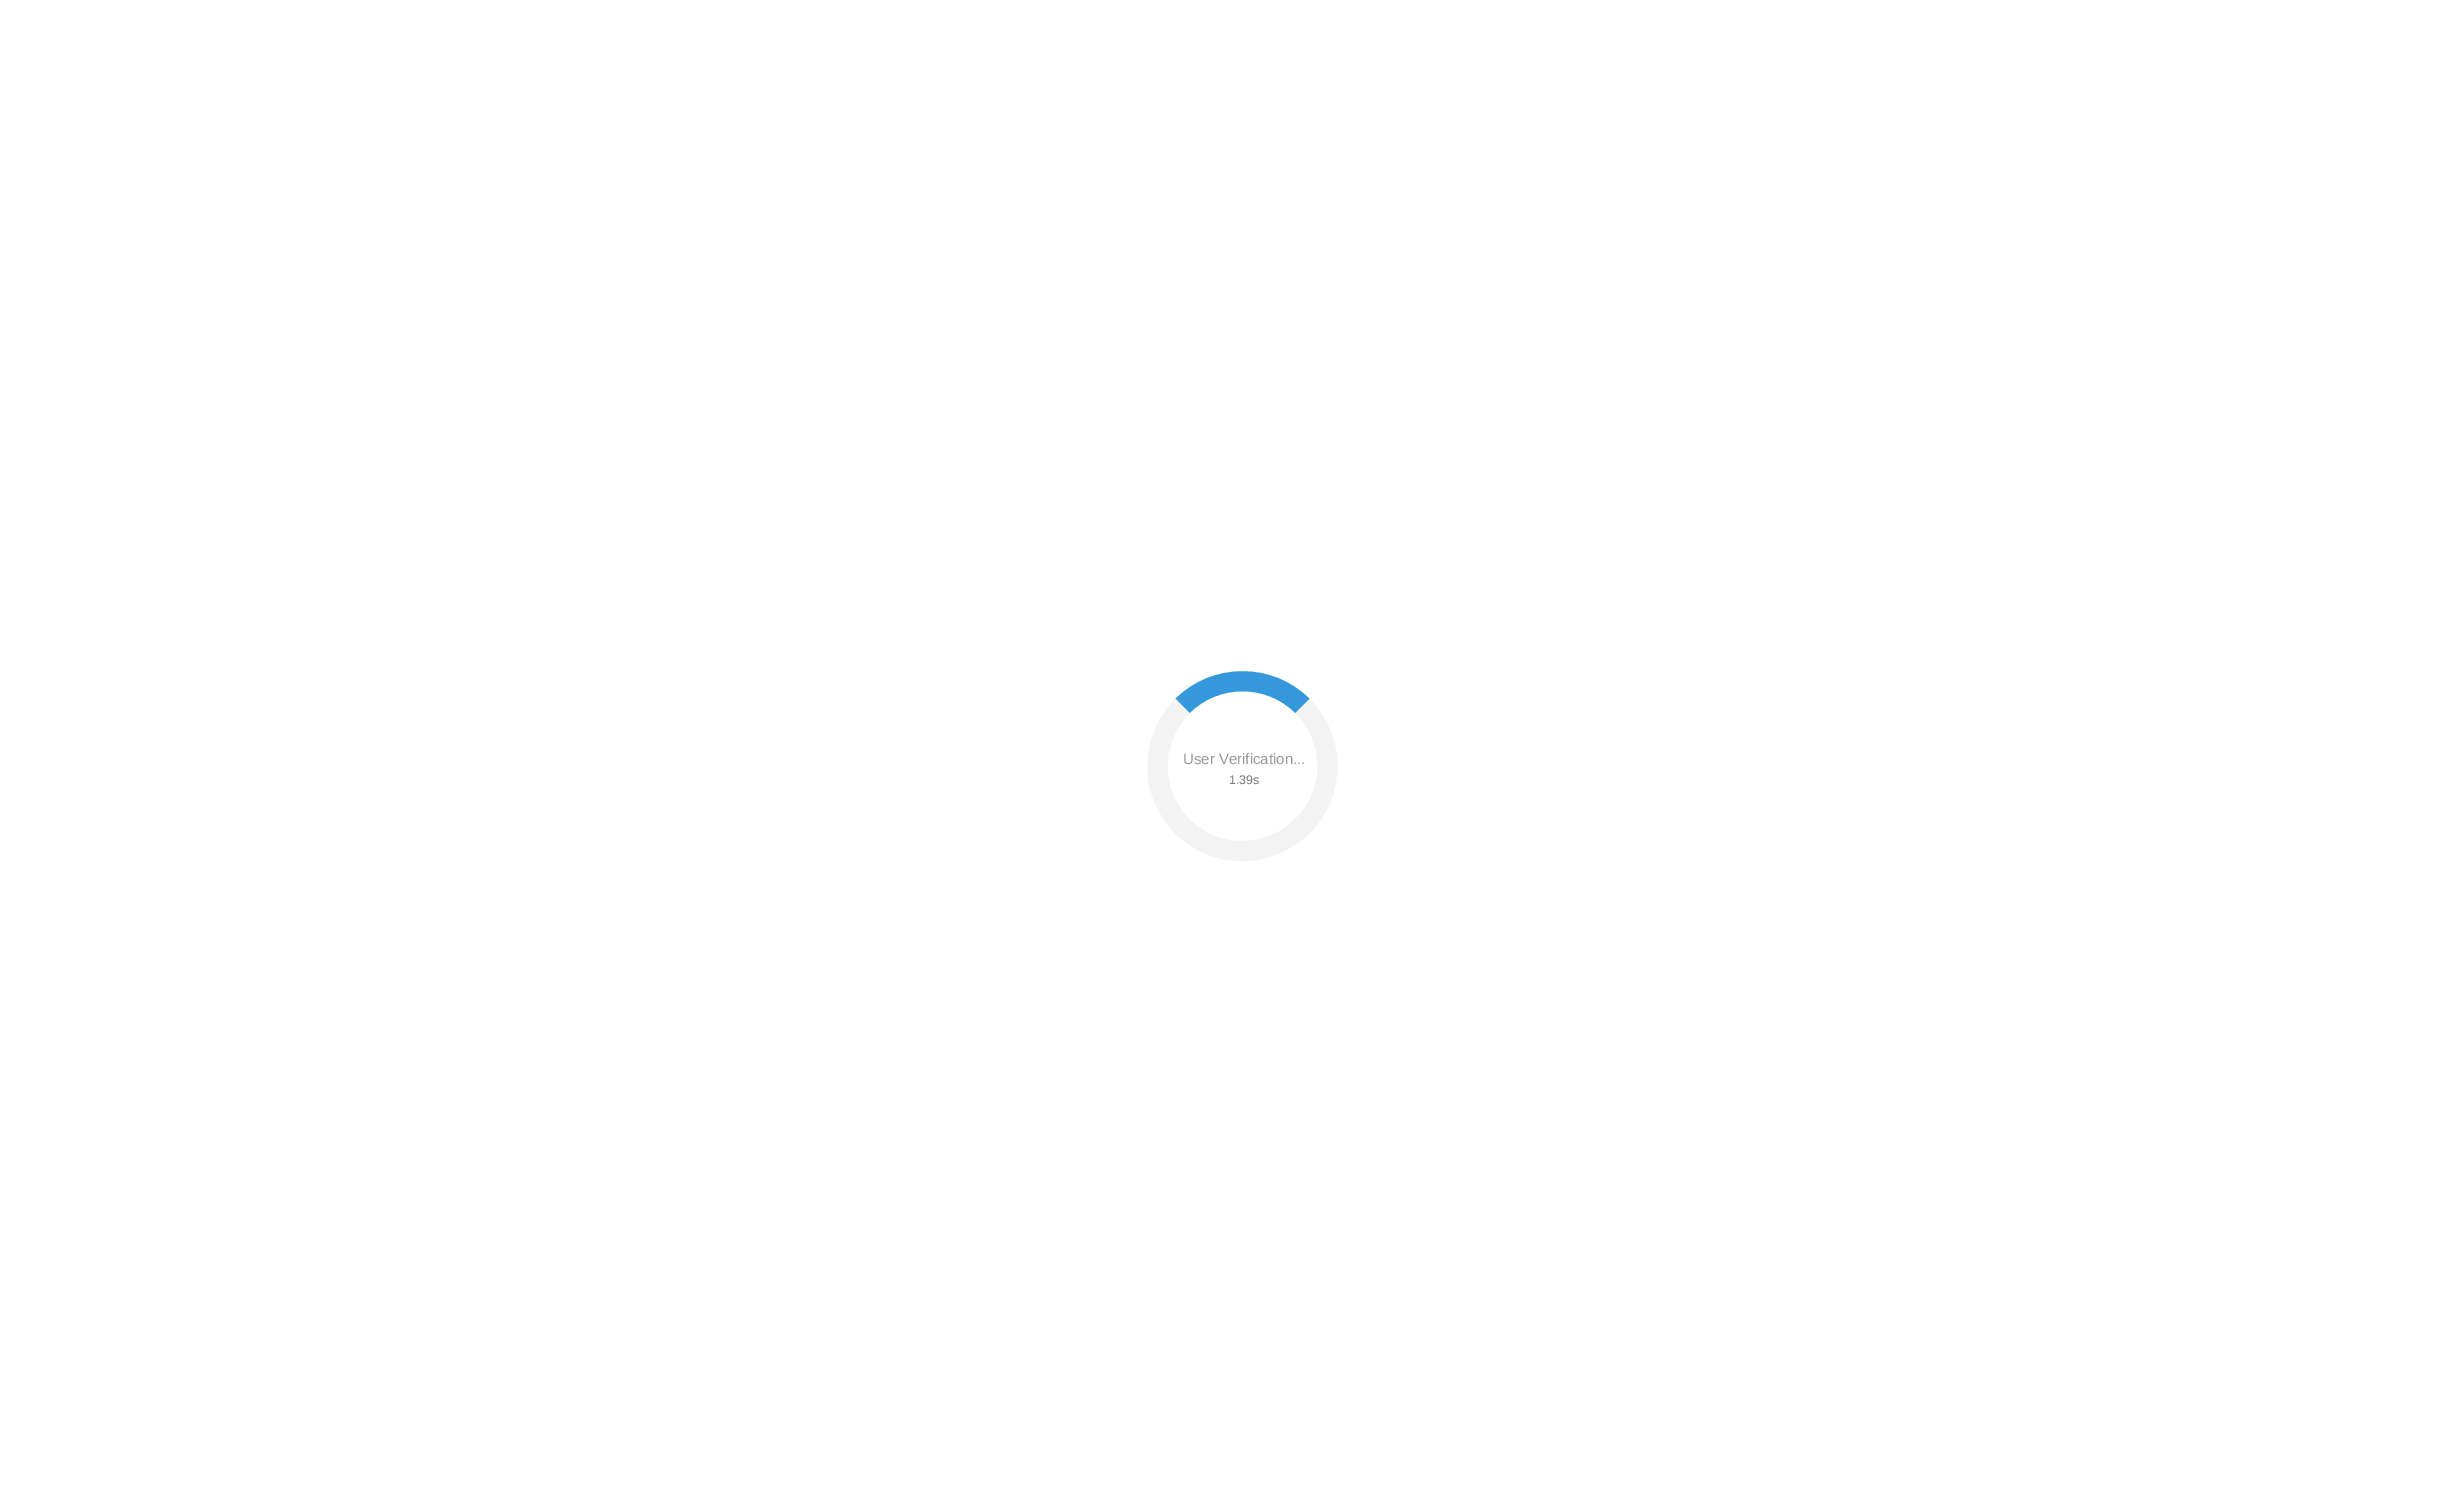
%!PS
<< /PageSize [2443 1492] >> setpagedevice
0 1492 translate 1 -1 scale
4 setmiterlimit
1 setgray
0 0 2443 1492 rectfill
0.204 0.596 0.859 setrgbcolor
20 setlinewidth
newpath 1182.5 706 moveto 1215.5 673 1269.5 673 1302.5 706 curveto stroke
0.953 setgray
newpath 1302.5 706 moveto 1318.5 722 1327.5 744 1327.5 766 curveto 1327.5 841.5 1235.5 879.5 1182.5 826.5 curveto 1170.5 814.5 1162.5 799.5 1159 783 curveto 1153.5 755.5 1162.5 726 1182.5 706 curveto stroke
/LiberationSans-Regular [15 0 0 -15 0 0] selectfont
0.6 setgray
1183 764 moveto (User Verification...) show
/LiberationSans-Regular [12.5 0 0 -12.5 0 0] selectfont
0.467 setgray
1229 784 moveto (1.39s) show
showpage
